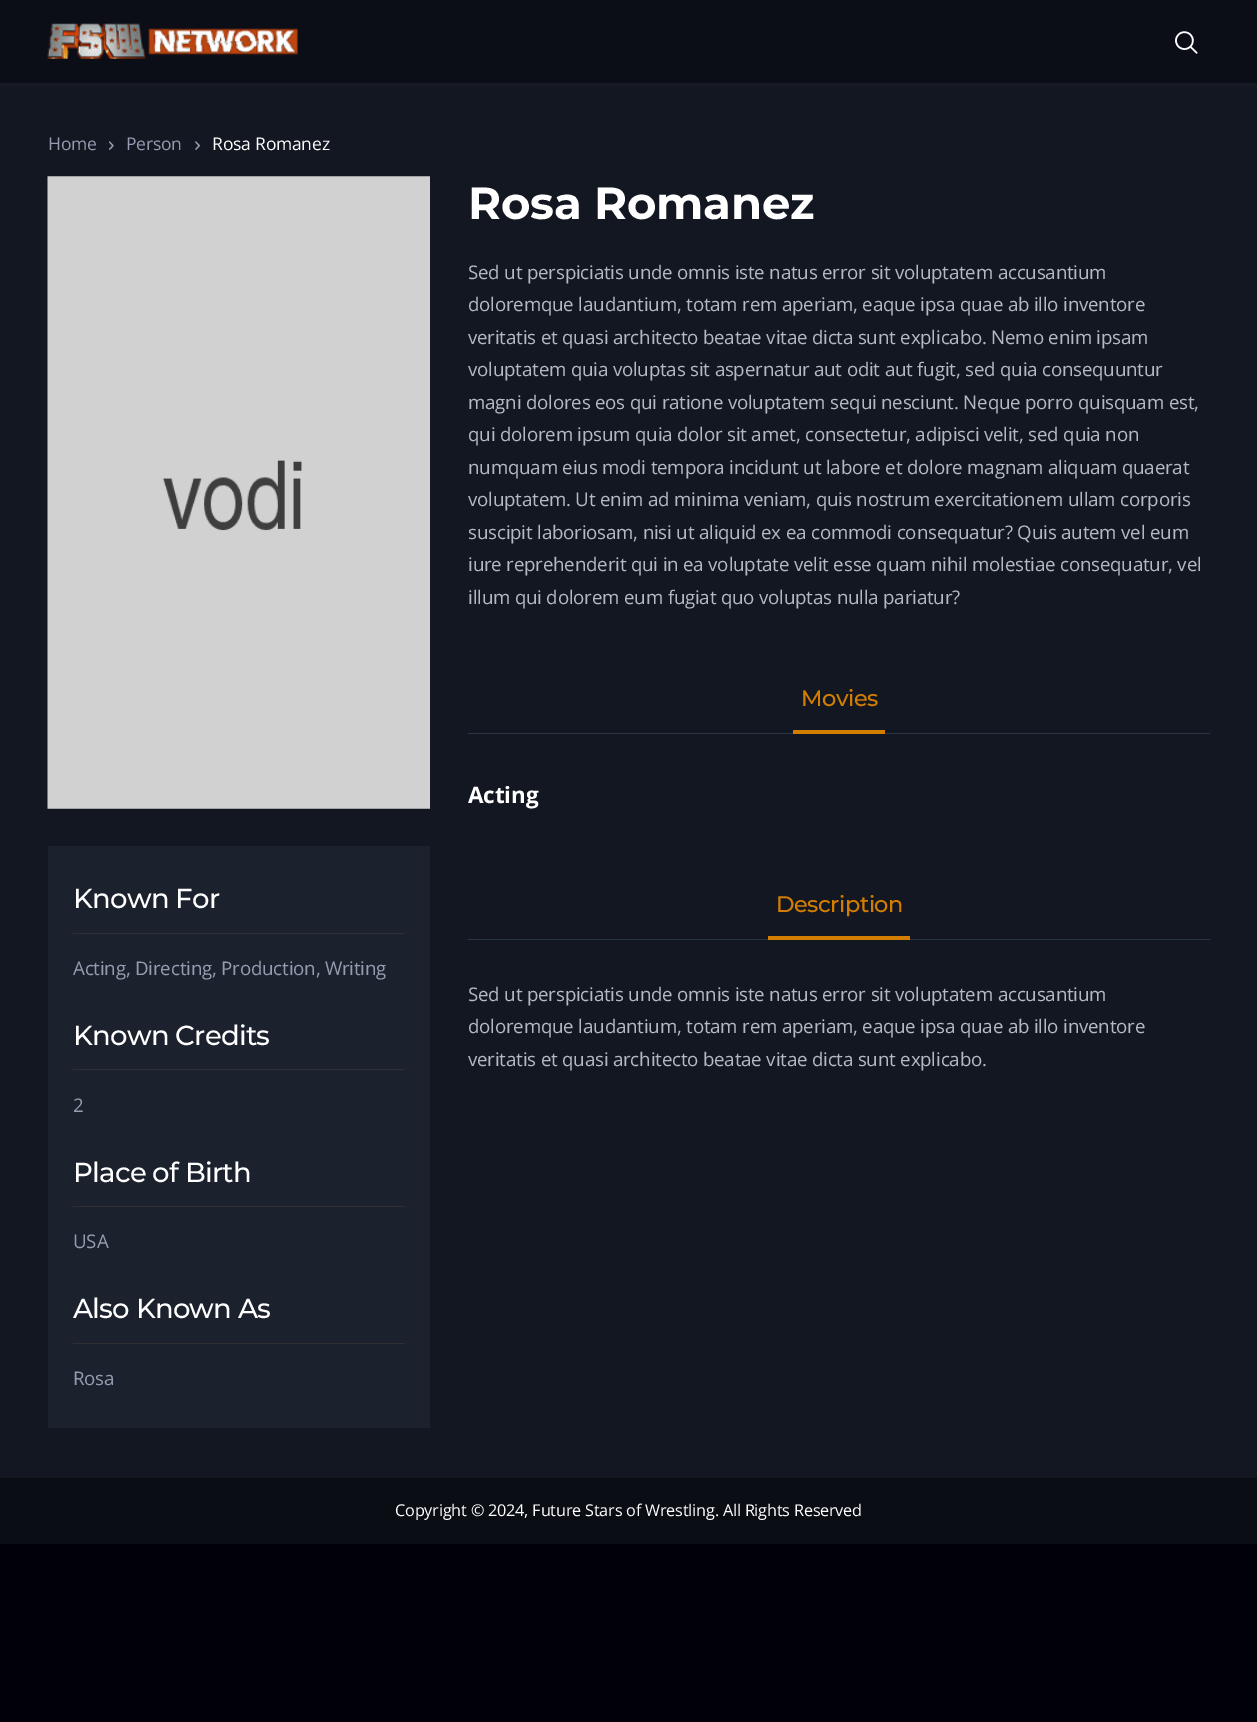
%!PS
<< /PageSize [1257 1722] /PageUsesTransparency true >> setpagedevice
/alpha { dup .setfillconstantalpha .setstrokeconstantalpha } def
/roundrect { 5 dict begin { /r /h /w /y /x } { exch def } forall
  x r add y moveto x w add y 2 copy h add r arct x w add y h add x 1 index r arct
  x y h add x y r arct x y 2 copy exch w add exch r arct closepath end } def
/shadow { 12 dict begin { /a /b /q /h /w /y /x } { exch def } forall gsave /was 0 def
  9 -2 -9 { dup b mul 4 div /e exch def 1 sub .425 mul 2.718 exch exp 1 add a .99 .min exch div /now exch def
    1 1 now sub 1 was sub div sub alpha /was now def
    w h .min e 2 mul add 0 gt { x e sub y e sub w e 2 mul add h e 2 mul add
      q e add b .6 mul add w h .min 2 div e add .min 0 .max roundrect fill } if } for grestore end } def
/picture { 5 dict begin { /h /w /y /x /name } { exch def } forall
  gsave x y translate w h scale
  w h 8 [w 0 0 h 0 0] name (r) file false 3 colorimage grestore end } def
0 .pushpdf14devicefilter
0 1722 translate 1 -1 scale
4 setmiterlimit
0.004 0 0.039 setrgbcolor
0 0 1257 1722 rectfill
0.075 0.09 0.133 setrgbcolor
0 83 1257 1395 rectfill
0.2 setgray
0 0 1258 83 0 5 0.3 shadow
0.047 0.055 0.09 setrgbcolor
0 0 1257 83 rectfill
(img1.rgb) 47 23 251 36 picture
(img2.rgb) 1175 31 23 23 picture
/OpenSans-Regular [17.5 0 0 -17.5 0 0] selectfont
0.58 0.612 0.69 setrgbcolor
48 150 moveto -0.2 0 (Home) ashow
(img3.rgb) 109 141 5 9 picture
126 150 moveto -0.2 0 (Person) ashow
(img4.rgb) 195 141 5 9 picture
1 setgray
212 150 moveto -0.2 0 (Rosa Romanez) ashow
/Montserrat-Bold [45 0 0 -45 0 0] selectfont
468 219 moveto -0.2 0 (Rosa Romanez) ashow
/OpenSans-Regular [18.75 0 0 -18.75 0 0] selectfont
0.706 0.733 0.753 setrgbcolor
468 279 moveto -0.2 0 (Sed ut perspiciatis unde omnis iste natus error sit voluptatem accusantium) ashow
468 311 moveto -0.2 0 (doloremque laudantium, totam rem aperiam, eaque ipsa quae ab illo inventore) ashow
468 344 moveto -0.2 0 (veritatis et quasi architecto beatae vitae dicta sunt explicabo. Nemo enim ipsam) ashow
468 376 moveto -0.2 0 (voluptatem quia voluptas sit aspernatur aut odit aut fugit, sed quia consequuntur) ashow
468 409 moveto -0.2 0 (magni dolores eos qui ratione voluptatem sequi nesciunt. Neque porro quisquam est,) ashow
468 441 moveto -0.2 0 (qui dolorem ipsum quia dolor sit amet, consectetur, adipisci velit, sed quia non) ashow
468 474 moveto -0.2 0 (numquam eius modi tempora incidunt ut labore et dolore magnam aliquam quaerat) ashow
468 506 moveto -0.2 0 (voluptatem. Ut enim ad minima veniam, quis nostrum exercitationem ullam corporis) ashow
468 539 moveto -0.2 0 (suscipit laboriosam, nisi ut aliquid ex ea commodi consequatur? Quis autem vel eum) ashow
468 571 moveto -0.2 0 (iure reprehenderit qui in ea voluptate velit esse quam nihil molestiae consequatur, vel) ashow
468 604 moveto -0.2 0 (illum qui dolorem eum fugiat quo voluptas nulla pariatur?) ashow
0.157 0.212 0.263 setrgbcolor
468 733 742 1 rectfill
/Montserrat-Medium [22.5 0 0 -22.5 0 0] selectfont
0.827 0.494 0 setrgbcolor
801 706 moveto -0.5 0 (Movies) ashow
793 730 92 4 rectfill
/OpenSans-Bold [22.5 0 0 -22.5 0 0] selectfont
1 setgray
468 803 moveto -0.2 0 (Acting) ashow
0.157 0.212 0.263 setrgbcolor
468 939 742 1 rectfill
/Montserrat-Medium [22.5 0 0 -22.5 0 0] selectfont
0.827 0.494 0 setrgbcolor
776 912 moveto -0.5 0 (Description) ashow
768 936 142 4 rectfill
/OpenSans-Regular [18.75 0 0 -18.75 0 0] selectfont
0.706 0.733 0.753 setrgbcolor
468 1001 moveto -0.2 0 (Sed ut perspiciatis unde omnis iste natus error sit voluptatem accusantium) ashow
468 1033 moveto -0.2 0 (doloremque laudantium, totam rem aperiam, eaque ipsa quae ab illo inventore) ashow
468 1066 moveto -0.2 0 (veritatis et quasi architecto beatae vitae dicta sunt explicabo.) ashow
(img5.rgb) 47 176 383 633 picture
0.11 0.129 0.18 setrgbcolor
48 846 382 582 rectfill
0.184 0.184 0.2 setrgbcolor
73 933 332 1 rectfill
/Montserrat-Medium [27.5 0 0 -27.5 0 0] selectfont
1 setgray
73 908 moveto -0.75 0 (Known For) ashow
/OpenSans-Regular [18.75 0 0 -18.75 0 0] selectfont
0.58 0.612 0.69 setrgbcolor
73 975 moveto -0.2 0 (Acting, Directing, Production, Writing) ashow
0.184 0.184 0.2 setrgbcolor
73 1069 332 1 rectfill
/Montserrat-Medium [27.5 0 0 -27.5 0 0] selectfont
1 setgray
73 1045 moveto -0.75 0 (Known Credits) ashow
/OpenSans-Regular [18.75 0 0 -18.75 0 0] selectfont
0.58 0.612 0.69 setrgbcolor
73 1112 moveto -0.2 0 (2) ashow
0.184 0.184 0.2 setrgbcolor
73 1206 332 1 rectfill
/Montserrat-Medium [27.5 0 0 -27.5 0 0] selectfont
1 setgray
73 1182 moveto -0.75 0 (Place of Birth) ashow
/OpenSans-Regular [18.75 0 0 -18.75 0 0] selectfont
0.58 0.612 0.69 setrgbcolor
73 1248 moveto -0.2 0 (USA) ashow
0.184 0.184 0.2 setrgbcolor
73 1343 332 1 rectfill
/Montserrat-Medium [27.5 0 0 -27.5 0 0] selectfont
1 setgray
73 1318 moveto -0.75 0 (Also Known As) ashow
/OpenSans-Regular [18.75 0 0 -18.75 0 0] selectfont
0.58 0.612 0.69 setrgbcolor
73 1385 moveto -0.2 0 (Rosa) ashow
0.039 0.051 0.078 setrgbcolor
0 1478 1257 66 rectfill
/OpenSans-Regular [16.25 0 0 -16.25 0 0] selectfont
1 setgray
395 1516 moveto -0.2 0 (Copyright © 2024, Future Stars of Wrestling. All Rights Reserved) ashow
.poppdf14devicefilter showpage
